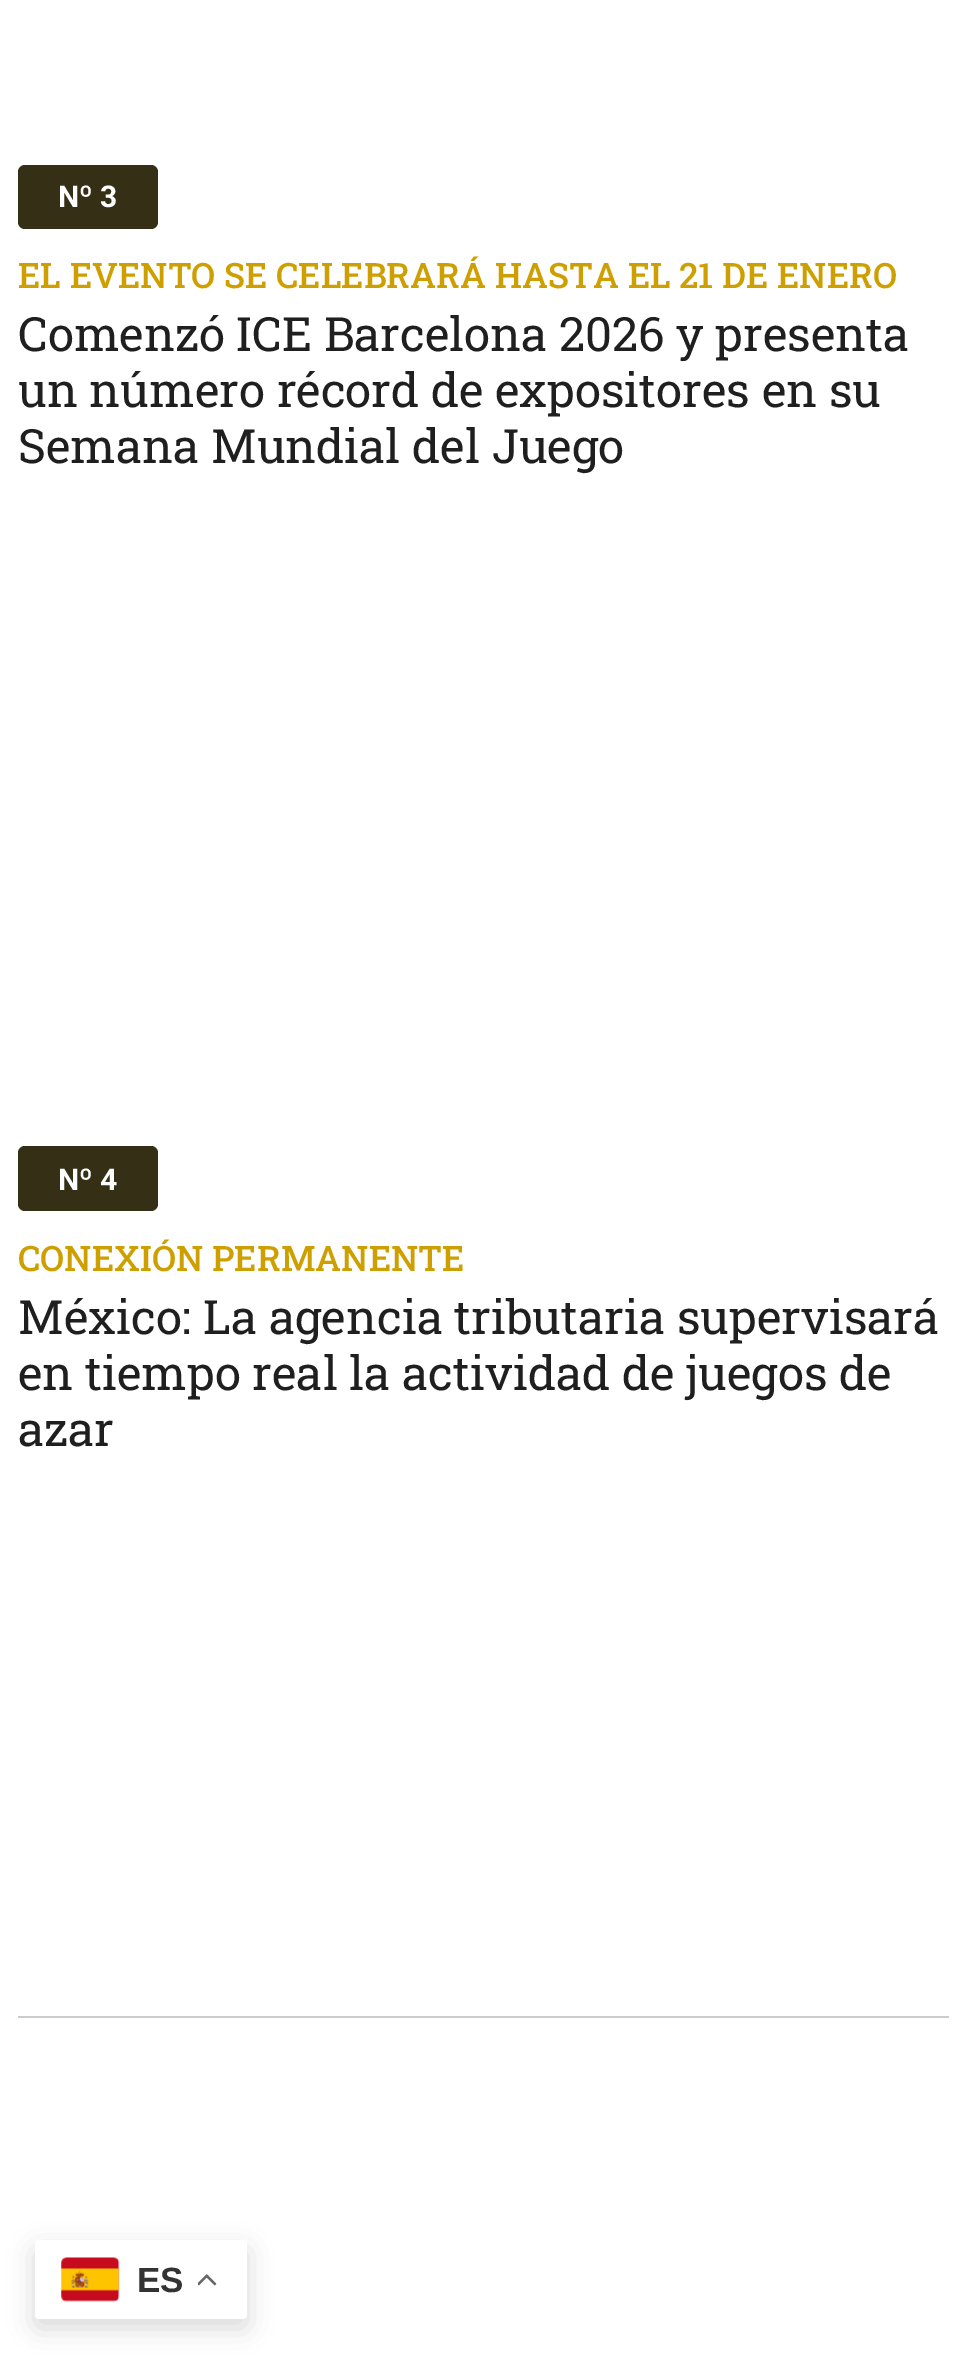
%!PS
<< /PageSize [966 2362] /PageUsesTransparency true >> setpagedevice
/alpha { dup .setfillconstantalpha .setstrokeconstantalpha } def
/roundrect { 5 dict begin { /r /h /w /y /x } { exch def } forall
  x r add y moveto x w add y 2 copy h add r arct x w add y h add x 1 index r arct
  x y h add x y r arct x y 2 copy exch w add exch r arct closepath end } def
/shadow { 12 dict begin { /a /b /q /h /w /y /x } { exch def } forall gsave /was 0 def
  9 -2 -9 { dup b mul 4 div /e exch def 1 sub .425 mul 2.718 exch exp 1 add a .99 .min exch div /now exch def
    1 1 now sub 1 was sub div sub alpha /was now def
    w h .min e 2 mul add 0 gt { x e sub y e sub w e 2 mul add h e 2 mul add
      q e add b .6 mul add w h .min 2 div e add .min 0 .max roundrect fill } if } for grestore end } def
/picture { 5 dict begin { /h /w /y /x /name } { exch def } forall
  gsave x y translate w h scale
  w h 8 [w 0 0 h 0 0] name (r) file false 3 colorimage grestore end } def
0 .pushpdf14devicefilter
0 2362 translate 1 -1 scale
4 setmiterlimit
1 setgray
0 0 966 2362 rectfill
0.208 0.184 0.086 setrgbcolor
18 165 140 64 7 roundrect fill
/Roboto-Bold [30 0 0 -30 0 0] selectfont
1 setgray
58 207 moveto (Nº 3) show
/RobotoSlab-Medium [35 0 0 -35 0 0] selectfont
0.808 0.624 0 setrgbcolor
18 288 moveto (EL EVENTO SE CELEBRARÁ HASTA EL 21 DE ENERO) show
/RobotoSlab-Regular [47.25 0 0 -47.25 0 0] selectfont
0.122 setgray
18 351 moveto (Comenzó ICE Barcelona 2026 y presenta) show
18 407 moveto (un número récord de expositores en su) show
18 463 moveto (Semana Mundial del Juego) show
0.208 0.184 0.086 setrgbcolor
18 1146 140 65 7 roundrect fill
/Roboto-Bold [30 0 0 -30 0 0] selectfont
1 setgray
58 1190 moveto (Nº 4) show
/RobotoSlab-Medium [35 0 0 -35 0 0] selectfont
0.808 0.624 0 setrgbcolor
18 1271 moveto (CONEXIÓN PERMANENTE) show
/RobotoSlab-Regular [47.25 0 0 -47.25 0 0] selectfont
0.122 setgray
18 1334 moveto (México: La agencia tributaria supervisará) show
18 1390 moveto (en tiempo real la actividad de juegos de) show
18 1446 moveto (azar) show
0.8 setgray
18 2016 931 2 rectfill
0 setgray
35 2249 212 79 4 13 0.15 shadow
1 setgray
35 2240 212 79 4 roundrect fill
(img1.rgb) 61 2257 59 45 picture
/LiberationSans-Bold [35 0 0 -35 0 0] selectfont
0.2 setgray
137 2292 moveto (ES) show
(img2.rgb) 198 2274 19 12 picture
.poppdf14devicefilter showpage
